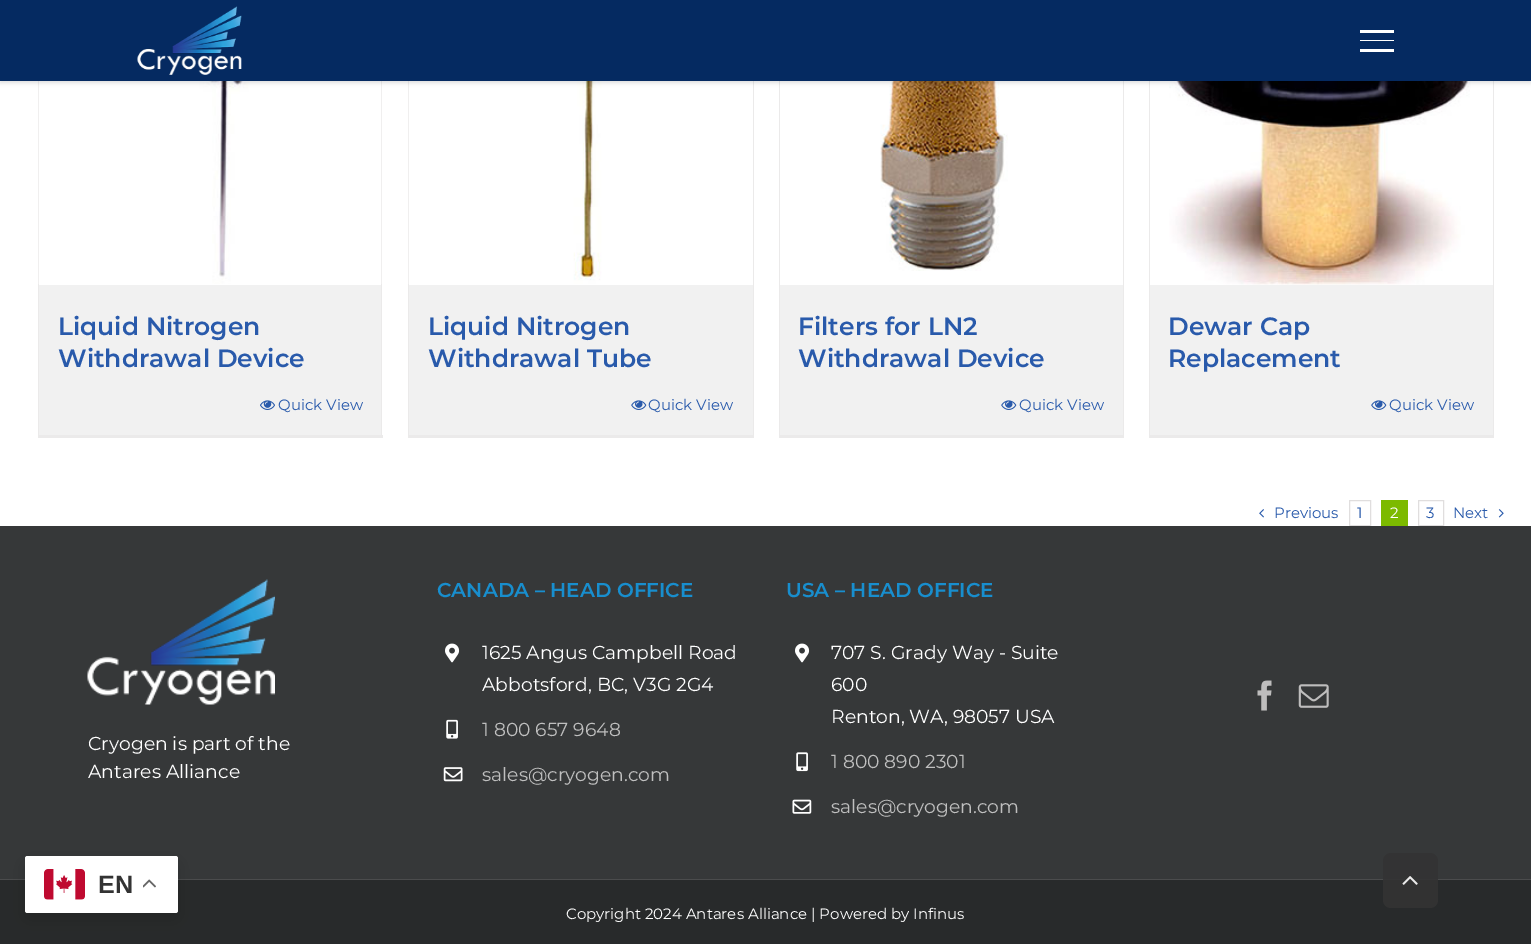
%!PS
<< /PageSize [1531 944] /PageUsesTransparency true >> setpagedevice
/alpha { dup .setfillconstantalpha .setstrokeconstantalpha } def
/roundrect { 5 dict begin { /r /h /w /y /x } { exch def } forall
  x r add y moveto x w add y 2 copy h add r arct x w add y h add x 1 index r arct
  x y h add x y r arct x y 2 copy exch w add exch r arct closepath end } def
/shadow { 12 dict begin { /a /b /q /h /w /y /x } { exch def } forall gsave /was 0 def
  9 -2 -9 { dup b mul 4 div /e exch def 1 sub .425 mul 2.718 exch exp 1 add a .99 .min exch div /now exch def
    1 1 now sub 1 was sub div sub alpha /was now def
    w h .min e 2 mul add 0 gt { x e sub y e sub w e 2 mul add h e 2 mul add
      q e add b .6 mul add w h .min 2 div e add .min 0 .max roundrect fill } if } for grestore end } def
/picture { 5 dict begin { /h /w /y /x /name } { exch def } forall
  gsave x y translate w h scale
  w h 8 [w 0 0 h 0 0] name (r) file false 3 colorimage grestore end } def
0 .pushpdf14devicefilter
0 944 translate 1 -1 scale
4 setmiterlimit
1 setgray
0 0 1531 944 rectfill
0.922 0.918 0.918 setrgbcolor
381 81 1 357 rectfill
38 435 345 3 rectfill
38 81 1 357 rectfill
(img2.rgb) 38 81 344 203 picture
753 81 1 357 rectfill
408 435 346 3 rectfill
408 81 1 357 rectfill
(img4.rgb) 408 81 221 203 picture
1123 81 1 357 rectfill
779 435 345 3 rectfill
779 81 1 357 rectfill
(img6.rgb) 880 81 128 190 picture
1493 81 1 357 rectfill
1149 435 345 3 rectfill
1149 81 1 357 rectfill
(img7.rgb) 1169 81 302 204 picture
0 setgray
0 1 1531 82 0 2 0.12 shadow
0.02 0.165 0.38 setrgbcolor
0 0 1531 81 rectfill
(img1.rgb) 137 6 105 69 picture
1 setgray
1360 30 34 3 rectfill
1360 40 34 1 rectfill
1360 49 34 3 rectfill
0.945 setgray
39 285 342 150 rectfill
/Montserrat-SemiBold [25 0 0 -25 0 0] selectfont
0.161 0.353 0.671 setrgbcolor
58 335 moveto (Liquid Nitrogen) show
58 367 moveto (Withdrawal Device) show
(img3.rgb) 260 400 15 10 picture
/Montserrat-Regular [15 0 0 -15 0 0] selectfont
278 410 moveto (Quick View) show
0.945 setgray
409 285 344 150 rectfill
/Montserrat-SemiBold [25 0 0 -25 0 0] selectfont
0.161 0.353 0.671 setrgbcolor
428 335 moveto (Liquid Nitrogen) show
428 367 moveto (Withdrawal Tube) show
(img5.rgb) 631 400 16 10 picture
/Montserrat-Regular [15 0 0 -15 0 0] selectfont
648 410 moveto (Quick View) show
0.945 setgray
780 285 343 150 rectfill
/Montserrat-SemiBold [25 0 0 -25 0 0] selectfont
0.161 0.353 0.671 setrgbcolor
798 335 moveto (Filters for LN2) show
798 367 moveto (Withdrawal Device) show
(img5.rgb) 1001 400 16 10 picture
/Montserrat-Regular [15 0 0 -15 0 0] selectfont
1019 410 moveto (Quick View) show
0.945 setgray
1150 285 343 150 rectfill
/Montserrat-SemiBold [25 0 0 -25 0 0] selectfont
0.161 0.353 0.671 setrgbcolor
1168 335 moveto (Dewar Cap) show
1168 367 moveto (Replacement) show
(img5.rgb) 1371 400 16 10 picture
/Montserrat-Regular [15 0 0 -15 0 0] selectfont
1389 410 moveto (Quick View) show
(img8.rgb) 1259 509 5 9 picture
1274 518 moveto (Previous) show
0.878 0.871 0.871 setrgbcolor
1349.5 500.5 21 25 rectstroke
0.161 0.353 0.671 setrgbcolor
1357 518 moveto (1) show
0.486 0.729 0 setrgbcolor
1381 500 27 26 rectfill
1 setgray
1390 518 moveto (2) show
0.878 0.871 0.871 setrgbcolor
1418.5 500.5 25 25 rectstroke
0.161 0.353 0.671 setrgbcolor
1426 518 moveto (3) show
1453 518 moveto (Next) show
(img9.rgb) 1498 509 6 9 picture
0.212 0.22 0.224 setrgbcolor
0 526 1531 353 rectfill
/Montserrat-SemiBold [20 0 0 -20 0 0] selectfont
0.094 0.557 0.808 setrgbcolor
437 597 moveto (CANADA – HEAD OFFICE) show
(img10.rgb) 445 643 15 20 picture
/Montserrat-Regular [18.75 0 0 -18.75 0 0] selectfont
1 setgray
482 659 moveto (1625 Angus Campbell Road) show
482 691 moveto (Abbotsford, BC, V3G 2G4) show
(img11.rgb) 446 719 12 20 picture
0.749 setgray
482 736 moveto (1 800 657 9648) show
(img12.rgb) 443 767 20 15 picture
482 781 moveto (sales@cryogen.com) show
/Montserrat-SemiBold [20 0 0 -20 0 0] selectfont
0.094 0.557 0.808 setrgbcolor
786 597 moveto (USA – HEAD OFFICE) show
(img10.rgb) 795 643 15 20 picture
/Montserrat-Regular [18.75 0 0 -18.75 0 0] selectfont
1 setgray
831 659 moveto (707 S. Grady Way - Suite) show
831 691 moveto (600) show
831 723 moveto (Renton, WA, 98057 USA) show
(img13.rgb) 796 752 12 20 picture
0.749 setgray
831 768 moveto (1 800 890 2301) show
(img14.rgb) 792 799 20 15 picture
831 813 moveto (sales@cryogen.com) show
(img15.rgb) 1257 680 15 31 picture
(img16.rgb) 1298 684 31 24 picture
(img17.rgb) 87 579 188 126 picture
1 setgray
88 750 moveto (Cryogen is part of the) show
88 778 moveto (Antares Alliance) show
0.157 0.165 0.169 setrgbcolor
0 880 1531 64 rectfill
0.294 0.298 0.302 setrgbcolor
0 879 1531 1 rectfill
/Montserrat-Regular [15 0 0 -15 0 0] selectfont
1 setgray
566 919 moveto (Copyright 2024 Antares Alliance | Powered by Infinus) show
0 setgray
25 863 153 56 2.5 9.5 0.15 shadow
1 setgray
25 856 153 57 2.5 roundrect fill
(img18.rgb) 44 869 41 31 picture
/LiberationSans-Bold [25 0 0 -25 0 0] selectfont
0.2 setgray
98 893 moveto (EN) show
(img19.rgb) 143 879 13 9 picture
0.9 alpha
1383 853 55 55 8 roundrect fill
1 alpha
(img20.rgb) 1402 876 16 9 picture
.poppdf14devicefilter showpage
